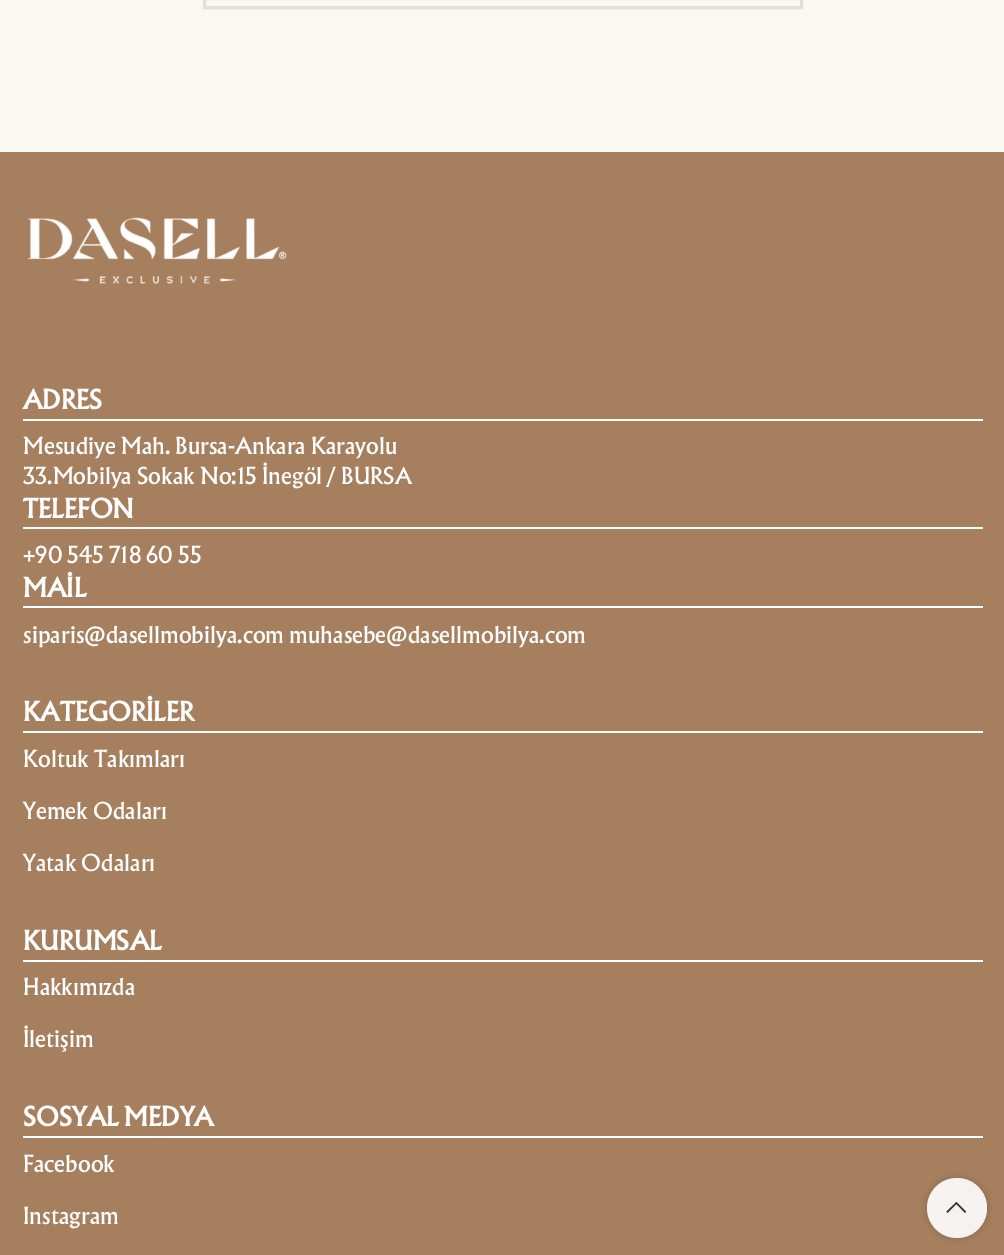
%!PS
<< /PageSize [1004 1255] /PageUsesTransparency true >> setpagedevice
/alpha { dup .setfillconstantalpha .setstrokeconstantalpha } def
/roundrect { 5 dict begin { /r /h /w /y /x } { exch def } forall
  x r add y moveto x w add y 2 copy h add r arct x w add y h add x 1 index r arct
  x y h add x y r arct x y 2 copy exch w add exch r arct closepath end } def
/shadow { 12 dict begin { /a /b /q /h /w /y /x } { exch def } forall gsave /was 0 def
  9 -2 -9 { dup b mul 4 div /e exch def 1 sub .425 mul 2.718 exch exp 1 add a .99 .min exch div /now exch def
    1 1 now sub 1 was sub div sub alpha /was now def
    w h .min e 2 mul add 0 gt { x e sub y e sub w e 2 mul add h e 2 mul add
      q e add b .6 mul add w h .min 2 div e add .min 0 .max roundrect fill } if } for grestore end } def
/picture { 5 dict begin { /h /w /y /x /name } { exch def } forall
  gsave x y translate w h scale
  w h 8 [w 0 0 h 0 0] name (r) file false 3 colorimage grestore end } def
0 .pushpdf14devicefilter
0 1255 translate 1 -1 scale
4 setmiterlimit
0.984 0.969 0.953 setrgbcolor
0 0 1004 1255 rectfill
0.886 0.871 0.859 setrgbcolor
3 setlinewidth
204.5 -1.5 597 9 rectstroke
0.651 0.498 0.369 setrgbcolor
0 152 1004 1103 rectfill
(img1.rgb) 27 217 260 67 picture
1 setgray
23 419 960 2 rectfill
/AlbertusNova-Bold [24 0 0 -24 0 0] selectfont
23 409 moveto (ADRES) show
/AlbertusNova-Regular [21 0 0 -21 0 0] selectfont
23 454 moveto (Mesudiye Mah. Bursa-Ankara Karayolu) show
23 484 moveto (33.Mobilya Sokak No:15 İnegöl / BURSA) show
23 527 960 2 rectfill
/AlbertusNova-Bold [24 0 0 -24 0 0] selectfont
23 518 moveto (TELEFON) show
/AlbertusNova-Regular [21 0 0 -21 0 0] selectfont
23 563 moveto (+90 545 718 60 55) show
23 606 960 2 rectfill
/AlbertusNova-Bold [24 0 0 -24 0 0] selectfont
23 597 moveto (MAİL) show
/AlbertusNova-Regular [21 0 0 -21 0 0] selectfont
23 643 moveto (siparis@dasellmobilya.com muhasebe@dasellmobilya.com) show
23 731 960 2 rectfill
/AlbertusNova-Bold [24 0 0 -24 0 0] selectfont
23 721 moveto (KATEGORİLER) show
/AlbertusNova-Regular [21 0 0 -21 0 0] selectfont
23 767 moveto (Koltuk Takımları) show
23 819 moveto (Yemek Odaları) show
23 871 moveto (Yatak Odaları) show
23 960 960 2 rectfill
/AlbertusNova-Bold [24 0 0 -24 0 0] selectfont
23 950 moveto (KURUMSAL) show
/AlbertusNova-Regular [21 0 0 -21 0 0] selectfont
23 995 moveto (Hakkımızda) show
23 1047 moveto (İletişim) show
23 1136 960 2 rectfill
/AlbertusNova-Bold [24 0 0 -24 0 0] selectfont
23 1126 moveto (SOSYAL MEDYA) show
/AlbertusNova-Regular [21 0 0 -21 0 0] selectfont
23 1172 moveto (Facebook) show
23 1224 moveto (Instagram) show
gsave
newpath 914 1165 moveto 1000 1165 lineto 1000 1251 lineto 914 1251 lineto closepath 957 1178 moveto 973.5 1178 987 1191.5 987 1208 curveto 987 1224.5 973.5 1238 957 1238 curveto 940.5 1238 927 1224.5 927 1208 curveto 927 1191.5 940.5 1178 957 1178 curveto closepath eoclip newpath
0 setgray
927 1178 60 60 30 4 0.17 shadow
grestore
0.9 alpha
newpath 957 1208 30 0 360 arc closepath fill
1 alpha
0.2 setgray
newpath 965 1213 moveto 966 1211.5 lineto 956.5 1202 lineto 946.5 1211.5 lineto 947.5 1213 lineto 956.5 1204 lineto closepath fill
.poppdf14devicefilter showpage
